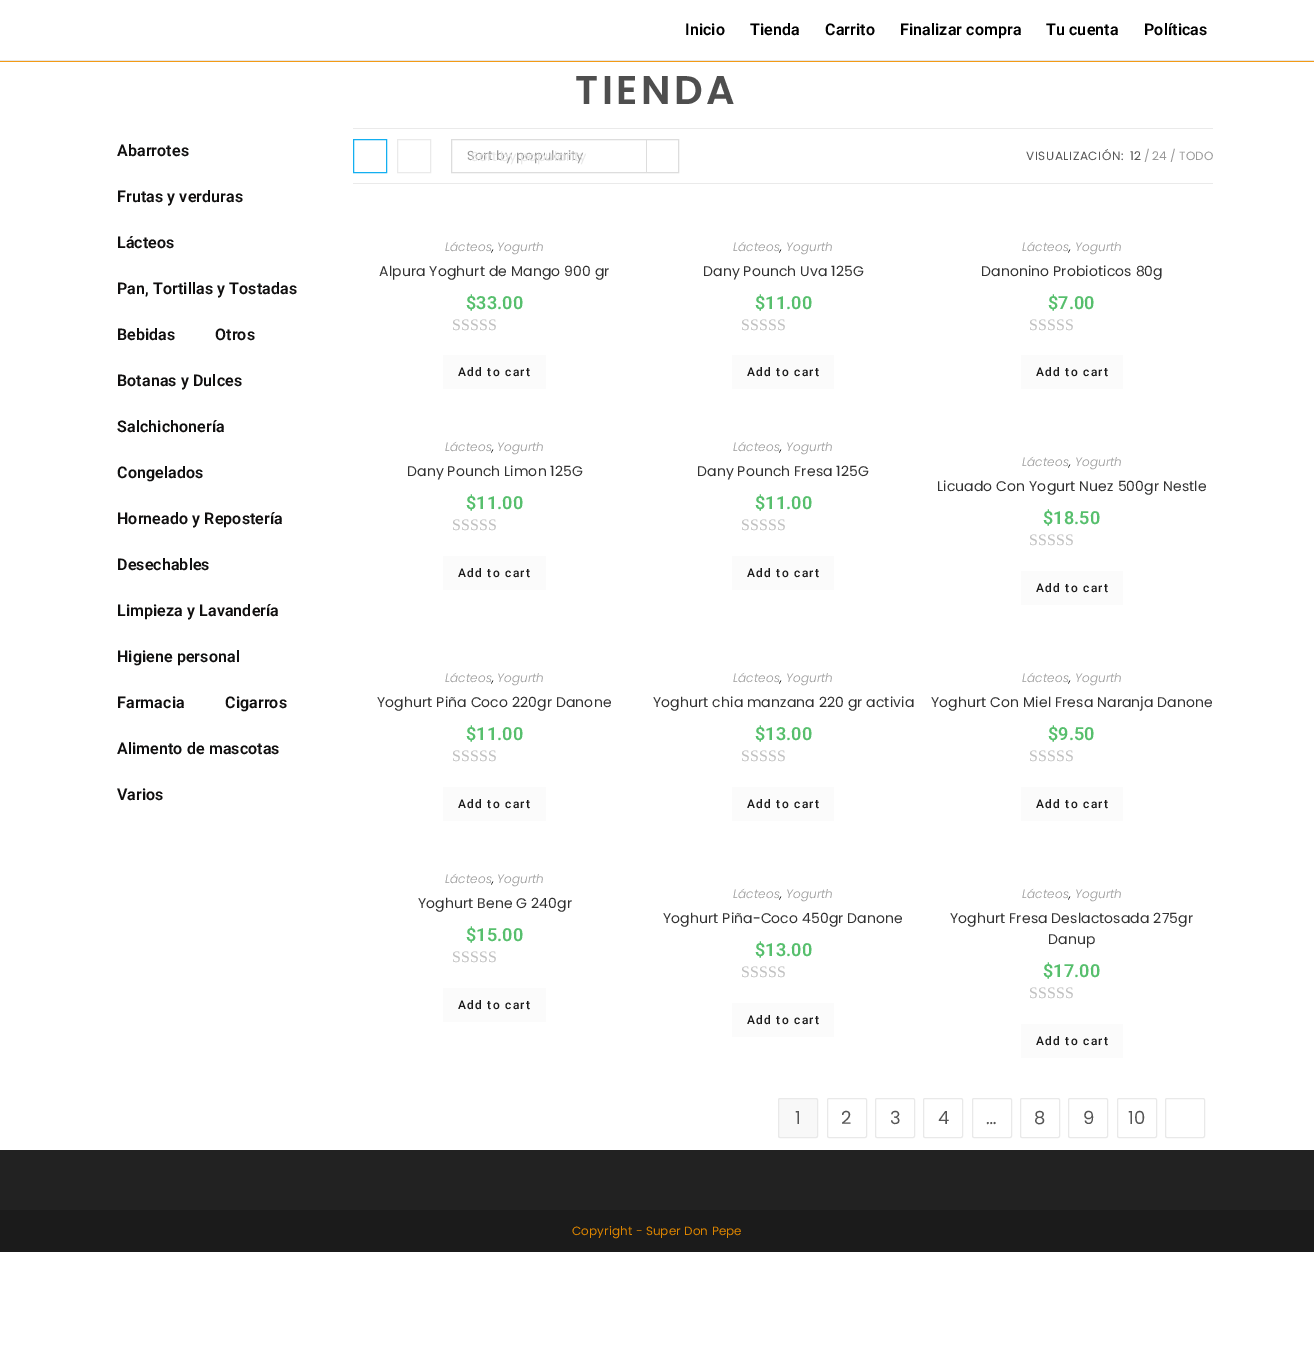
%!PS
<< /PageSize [1314 1352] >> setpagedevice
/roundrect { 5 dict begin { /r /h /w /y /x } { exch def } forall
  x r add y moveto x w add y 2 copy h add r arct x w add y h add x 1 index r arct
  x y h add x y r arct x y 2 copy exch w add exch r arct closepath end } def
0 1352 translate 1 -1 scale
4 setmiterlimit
1 setgray
0 0 1314 1352 rectfill
0.953 0.608 0.086 setrgbcolor
0 61 1314 1 rectfill
0.898 setgray
0 60 1314 1 rectfill
/Roboto-SemiBold [16 0 0 -16 0 0] selectfont
0 setgray
685 35 moveto 0.1 0 (Inicio) ashow
750 35 moveto 0.1 0 (Tienda) ashow
825 35 moveto 0.1 0 (Carrito) ashow
900 35 moveto 0.1 0 (Finalizar compra) ashow
1046 35 moveto 0.1 0 (Tu cuenta) ashow
1144 35 moveto 0.1 0 (Políticas) ashow
/Poppins-SemiBold [40 0 0 -40 0 0] selectfont
0.306 setgray
575 104 moveto 3.5 0 (TIENDA) ashow
/Roboto-SemiBold [16 0 0 -16 0 0] selectfont
0.063 0.059 0.059 setrgbcolor
117 156 moveto 0.1 0 (Abarrotes) ashow
117 202 moveto 0.1 0 (Frutas y verduras) ashow
117 248 moveto 0.1 0 (Lácteos) ashow
117 294 moveto 0.1 0 (Pan, Tortillas y Tostadas) ashow
117 340 moveto 0.1 0 (Bebidas) ashow
215 340 moveto 0.1 0 (Otros) ashow
117 386 moveto 0.1 0 (Botanas y Dulces) ashow
117 432 moveto 0.1 0 (Salchichonería) ashow
117 478 moveto 0.1 0 (Congelados) ashow
117 524 moveto 0.1 0 (Horneado y Repostería) ashow
117 570 moveto 0.1 0 (Desechables) ashow
117 616 moveto 0.1 0 (Limpieza y Lavandería) ashow
117 662 moveto 0.1 0 (Higiene personal) ashow
117 708 moveto 0.1 0 (Farmacia) ashow
225 708 moveto 0.1 0 (Cigarros) ashow
117 754 moveto 0.1 0 (Alimento de mascotas) ashow
117 800 moveto 0.1 0 (Varios) ashow
0.918 setgray
353 128 860 1 rectfill
353 183 860 1 rectfill
0.075 0.686 0.941 setrgbcolor
353.5 139.5 33 33 rectstroke
0.918 setgray
397.5 139.5 33 33 rectstroke
0.867 setgray
451.5 139.5 227 33 rectstroke
/Poppins-Regular [13 0 0 -13 0 0] selectfont
0.6 setgray
467 160 moveto 0.1 0 (Sort by popularity) ashow
0.867 setgray
646 140 1 32 rectfill
0.91 setgray
471 161 moveto (Sort by popularity) show
/Poppins-Regular [12 0 0 -12 0 0] selectfont
0.333 setgray
1026 160 moveto 0.6 0 (VISUALIZACIÓN:) ashow
1130 160 moveto 0.1 0 (12) ashow
0.6 setgray
1144 160 moveto 0.1 0 (/) ashow
1152 160 moveto 0.1 0 (24 /) ashow
1179 160 moveto 0.1 0 (TODO) ashow
/Poppins-LightItalic [12 0 0 -12 0 0] selectfont
445 251 moveto 0.1 0 (Lácteos) ashow
0 setgray
492 251 moveto 0.1 0 (,) ashow
0.6 setgray
497 251 moveto 0.1 0 (Yogurth) ashow
/Poppins-Regular [14 0 0 -14 0 0] selectfont
0.2 setgray
379 276 moveto 0.1 0 (Alpura Yoghurt de Mango 900 gr) ashow
/Roboto-SemiBold [18 0 0 -18 0 0] selectfont
0.341 0.749 0.427 setrgbcolor
466 309 moveto 0.1 0 ($33.00) ashow
/LiberationSerif-Regular [16 0 0 -16 0 0] selectfont
0.749 setgray
452 330 moveto 0.1 0 (SSSSS) ashow
0.984 setgray
443 355 103 34 rectfill
/Roboto-Medium [12 0 0 -12 0 0] selectfont
0.102 setgray
458 376 moveto 1.25 0 (Add to cart) ashow
/Poppins-LightItalic [12 0 0 -12 0 0] selectfont
0.6 setgray
733 251 moveto 0.1 0 (Lácteos) ashow
0 setgray
780 251 moveto 0.1 0 (,) ashow
0.6 setgray
786 251 moveto 0.1 0 (Yogurth) ashow
/Poppins-Regular [14 0 0 -14 0 0] selectfont
0.2 setgray
703 276 moveto 0.1 0 (Dany Pounch Uva 125G) ashow
/Roboto-SemiBold [18 0 0 -18 0 0] selectfont
0.341 0.749 0.427 setrgbcolor
755 309 moveto 0.1 0 ($11.00) ashow
/LiberationSerif-Regular [16 0 0 -16 0 0] selectfont
0.749 setgray
741 330 moveto 0.1 0 (SSSSS) ashow
0.984 setgray
732 355 102 34 rectfill
/Roboto-Medium [12 0 0 -12 0 0] selectfont
0.102 setgray
747 376 moveto 1.25 0 (Add to cart) ashow
/Poppins-LightItalic [12 0 0 -12 0 0] selectfont
0.6 setgray
1022 251 moveto 0.1 0 (Lácteos) ashow
1075 251 moveto 0.1 0 (Yogurth) ashow
0 setgray
1069 251 moveto 0.1 0 (,) ashow
/Poppins-Regular [14 0 0 -14 0 0] selectfont
0.2 setgray
981 276 moveto 0.1 0 (Danonino Probioticos 80g) ashow
/Roboto-SemiBold [18 0 0 -18 0 0] selectfont
0.341 0.749 0.427 setrgbcolor
1048 309 moveto 0.1 0 ($7.00) ashow
/LiberationSerif-Regular [16 0 0 -16 0 0] selectfont
0.749 setgray
1029 330 moveto 0.1 0 (SSSSS) ashow
0.984 setgray
1021 355 102 34 rectfill
/Roboto-Medium [12 0 0 -12 0 0] selectfont
0.102 setgray
1036 376 moveto 1.25 0 (Add to cart) ashow
/Poppins-LightItalic [12 0 0 -12 0 0] selectfont
0.6 setgray
445 451 moveto 0.1 0 (Lácteos) ashow
0 setgray
492 451 moveto 0.1 0 (,) ashow
0.6 setgray
497 451 moveto 0.1 0 (Yogurth) ashow
/Poppins-Regular [14 0 0 -14 0 0] selectfont
0.2 setgray
407 476 moveto 0.1 0 (Dany Pounch Limon 125G) ashow
/Roboto-SemiBold [18 0 0 -18 0 0] selectfont
0.341 0.749 0.427 setrgbcolor
466 509 moveto 0.1 0 ($11.00) ashow
/LiberationSerif-Regular [16 0 0 -16 0 0] selectfont
0.749 setgray
452 530 moveto 0.1 0 (SSSSS) ashow
0.984 setgray
443 556 103 34 rectfill
/Roboto-Medium [12 0 0 -12 0 0] selectfont
0.102 setgray
458 577 moveto 1.25 0 (Add to cart) ashow
/Poppins-LightItalic [12 0 0 -12 0 0] selectfont
0.6 setgray
733 451 moveto 0.1 0 (Lácteos) ashow
0 setgray
780 451 moveto 0.1 0 (,) ashow
0.6 setgray
786 451 moveto 0.1 0 (Yogurth) ashow
/Poppins-Regular [14 0 0 -14 0 0] selectfont
0.2 setgray
697 476 moveto 0.1 0 (Dany Pounch Fresa 125G) ashow
/Roboto-SemiBold [18 0 0 -18 0 0] selectfont
0.341 0.749 0.427 setrgbcolor
755 509 moveto 0.1 0 ($11.00) ashow
/LiberationSerif-Regular [16 0 0 -16 0 0] selectfont
0.749 setgray
741 530 moveto 0.1 0 (SSSSS) ashow
0.984 setgray
732 556 102 34 rectfill
/Roboto-Medium [12 0 0 -12 0 0] selectfont
0.102 setgray
747 577 moveto 1.25 0 (Add to cart) ashow
/Poppins-LightItalic [12 0 0 -12 0 0] selectfont
0.6 setgray
1022 466 moveto 0.1 0 (Lácteos) ashow
1075 466 moveto 0.1 0 (Yogurth) ashow
0 setgray
1069 466 moveto 0.1 0 (,) ashow
/Poppins-Regular [14 0 0 -14 0 0] selectfont
0.2 setgray
937 491 moveto 0.1 0 (Licuado Con Yogurt Nuez 500gr Nestle) ashow
/Roboto-SemiBold [18 0 0 -18 0 0] selectfont
0.341 0.749 0.427 setrgbcolor
1043 524 moveto 0.1 0 ($18.50) ashow
/LiberationSerif-Regular [16 0 0 -16 0 0] selectfont
0.749 setgray
1029 545 moveto 0.1 0 (SSSSS) ashow
0.984 setgray
1021 571 102 34 rectfill
/Roboto-Medium [12 0 0 -12 0 0] selectfont
0.102 setgray
1036 592 moveto 1.25 0 (Add to cart) ashow
/Poppins-LightItalic [12 0 0 -12 0 0] selectfont
0.6 setgray
445 682 moveto 0.1 0 (Lácteos) ashow
0 setgray
492 682 moveto 0.1 0 (,) ashow
0.6 setgray
497 682 moveto 0.1 0 (Yogurth) ashow
/Poppins-Regular [14 0 0 -14 0 0] selectfont
0.2 setgray
377 707 moveto 0.1 0 (Yoghurt Piña Coco 220gr Danone) ashow
/Roboto-SemiBold [18 0 0 -18 0 0] selectfont
0.341 0.749 0.427 setrgbcolor
466 740 moveto 0.1 0 ($11.00) ashow
/LiberationSerif-Regular [16 0 0 -16 0 0] selectfont
0.749 setgray
452 761 moveto 0.1 0 (SSSSS) ashow
0.984 setgray
443 787 103 34 rectfill
/Roboto-Medium [12 0 0 -12 0 0] selectfont
0.102 setgray
458 808 moveto 1.25 0 (Add to cart) ashow
/Poppins-LightItalic [12 0 0 -12 0 0] selectfont
0.6 setgray
733 682 moveto 0.1 0 (Lácteos) ashow
0 setgray
780 682 moveto 0.1 0 (,) ashow
0.6 setgray
786 682 moveto 0.1 0 (Yogurth) ashow
/Poppins-Regular [14 0 0 -14 0 0] selectfont
0.2 setgray
653 707 moveto 0.1 0 (Yoghurt chia manzana 220 gr activia) ashow
/Roboto-SemiBold [18 0 0 -18 0 0] selectfont
0.341 0.749 0.427 setrgbcolor
755 740 moveto 0.1 0 ($13.00) ashow
/LiberationSerif-Regular [16 0 0 -16 0 0] selectfont
0.749 setgray
741 761 moveto 0.1 0 (SSSSS) ashow
0.984 setgray
732 787 102 34 rectfill
/Roboto-Medium [12 0 0 -12 0 0] selectfont
0.102 setgray
747 808 moveto 1.25 0 (Add to cart) ashow
/Poppins-LightItalic [12 0 0 -12 0 0] selectfont
0.6 setgray
1022 682 moveto 0.1 0 (Lácteos) ashow
1075 682 moveto 0.1 0 (Yogurth) ashow
0 setgray
1069 682 moveto 0.1 0 (,) ashow
/Poppins-Regular [14 0 0 -14 0 0] selectfont
0.2 setgray
931 707 moveto 0.1 0 (Yoghurt Con Miel Fresa Naranja Danone) ashow
/Roboto-SemiBold [18 0 0 -18 0 0] selectfont
0.341 0.749 0.427 setrgbcolor
1048 740 moveto 0.1 0 ($9.50) ashow
/LiberationSerif-Regular [16 0 0 -16 0 0] selectfont
0.749 setgray
1029 761 moveto 0.1 0 (SSSSS) ashow
0.984 setgray
1021 787 102 34 rectfill
/Roboto-Medium [12 0 0 -12 0 0] selectfont
0.102 setgray
1036 808 moveto 1.25 0 (Add to cart) ashow
/Poppins-LightItalic [12 0 0 -12 0 0] selectfont
0.6 setgray
445 883 moveto 0.1 0 (Lácteos) ashow
0 setgray
492 883 moveto 0.1 0 (,) ashow
0.6 setgray
497 883 moveto 0.1 0 (Yogurth) ashow
/Poppins-Regular [14 0 0 -14 0 0] selectfont
0.2 setgray
418 908 moveto 0.1 0 (Yoghurt Bene G 240gr) ashow
/Roboto-SemiBold [18 0 0 -18 0 0] selectfont
0.341 0.749 0.427 setrgbcolor
466 941 moveto 0.1 0 ($15.00) ashow
/LiberationSerif-Regular [16 0 0 -16 0 0] selectfont
0.749 setgray
452 962 moveto 0.1 0 (SSSSS) ashow
0.984 setgray
443 988 103 34 rectfill
/Roboto-Medium [12 0 0 -12 0 0] selectfont
0.102 setgray
458 1009 moveto 1.25 0 (Add to cart) ashow
/Poppins-LightItalic [12 0 0 -12 0 0] selectfont
0.6 setgray
733 898 moveto 0.1 0 (Lácteos) ashow
0 setgray
780 898 moveto 0.1 0 (,) ashow
0.6 setgray
786 898 moveto 0.1 0 (Yogurth) ashow
/Poppins-Regular [14 0 0 -14 0 0] selectfont
0.2 setgray
663 923 moveto 0.1 0 (Yoghurt Piña-Coco 450gr Danone) ashow
/Roboto-SemiBold [18 0 0 -18 0 0] selectfont
0.341 0.749 0.427 setrgbcolor
755 956 moveto 0.1 0 ($13.00) ashow
/LiberationSerif-Regular [16 0 0 -16 0 0] selectfont
0.749 setgray
741 977 moveto 0.1 0 (SSSSS) ashow
0.984 setgray
732 1003 102 34 rectfill
/Roboto-Medium [12 0 0 -12 0 0] selectfont
0.102 setgray
747 1024 moveto 1.25 0 (Add to cart) ashow
/Poppins-LightItalic [12 0 0 -12 0 0] selectfont
0.6 setgray
1022 898 moveto 0.1 0 (Lácteos) ashow
1075 898 moveto 0.1 0 (Yogurth) ashow
0 setgray
1069 898 moveto 0.1 0 (,) ashow
/Poppins-Regular [14 0 0 -14 0 0] selectfont
0.2 setgray
950 923 moveto 0.1 0 (Yoghurt Fresa Deslactosada 275gr) ashow
1048 944 moveto 0.1 0 (Danup) ashow
/Roboto-SemiBold [18 0 0 -18 0 0] selectfont
0.341 0.749 0.427 setrgbcolor
1043 977 moveto 0.1 0 ($17.00) ashow
/LiberationSerif-Regular [16 0 0 -16 0 0] selectfont
0.749 setgray
1029 998 moveto 0.1 0 (SSSSS) ashow
0.984 setgray
1021 1024 102 34 rectfill
/Roboto-Medium [12 0 0 -12 0 0] selectfont
0.102 setgray
1036 1045 moveto 1.25 0 (Add to cart) ashow
0.973 setgray
778.5 1098.5 39 39 1.5 roundrect gsave fill grestore
0.914 setgray
stroke
/Poppins-Regular [18 0 0 -18 0 0] selectfont
0.333 setgray
795 1124 moveto 0.1 0 (1) ashow
0.914 setgray
827.5 1098.5 39 39 1.5 roundrect stroke
0.333 setgray
841 1124 moveto 0.1 0 (2) ashow
0.914 setgray
875.5 1098.5 39 39 1.5 roundrect stroke
0.333 setgray
890 1124 moveto 0.1 0 (3) ashow
0.914 setgray
923.5 1098.5 39 39 1.5 roundrect stroke
0.333 setgray
938 1124 moveto 0.1 0 (4) ashow
0.914 setgray
972.5 1098.5 39 39 1.5 roundrect stroke
0.333 setgray
986 1124 moveto 0.1 0 (…) ashow
0.914 setgray
1020.5 1098.5 39 39 1.5 roundrect stroke
0.333 setgray
1034 1124 moveto 0.1 0 (8) ashow
0.914 setgray
1068.5 1098.5 39 39 1.5 roundrect stroke
0.333 setgray
1083 1124 moveto 0.1 0 (9) ashow
0.914 setgray
1117.5 1098.5 39 39 1.5 roundrect stroke
0.333 setgray
1128 1124 moveto 0.1 0 (10) ashow
0.914 setgray
1165.5 1098.5 39 39 1.5 roundrect stroke
0.133 setgray
0 1150 1314 60 rectfill
0.106 setgray
0 1210 1314 42 rectfill
/Poppins-Regular [12 0 0 -12 0 0] selectfont
0.867 0.522 0 setrgbcolor
572 1235 moveto 0.1 0 (Copyright - Super Don Pepe) ashow
showpage
